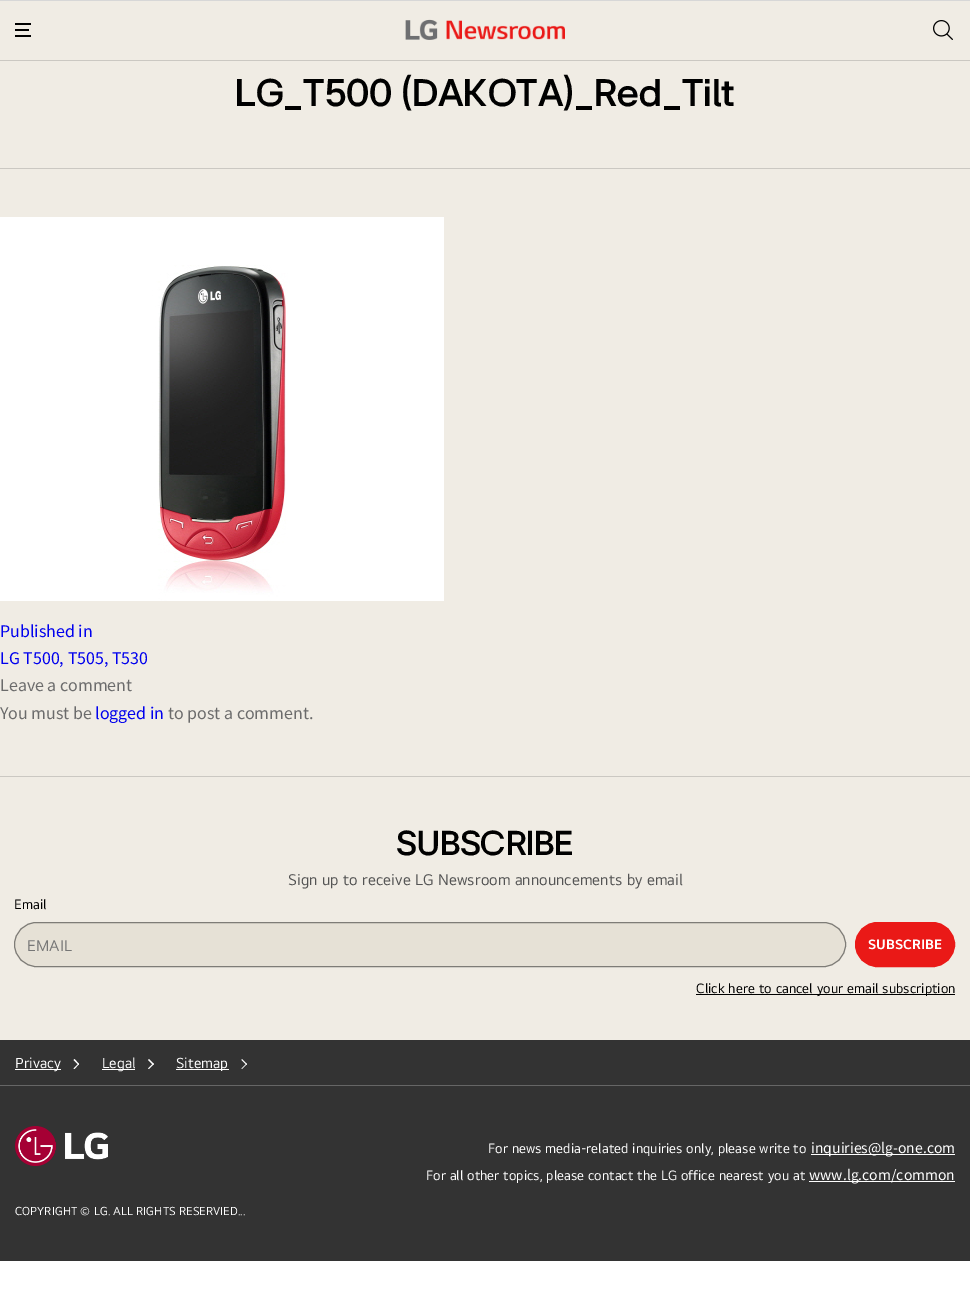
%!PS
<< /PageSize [970 1291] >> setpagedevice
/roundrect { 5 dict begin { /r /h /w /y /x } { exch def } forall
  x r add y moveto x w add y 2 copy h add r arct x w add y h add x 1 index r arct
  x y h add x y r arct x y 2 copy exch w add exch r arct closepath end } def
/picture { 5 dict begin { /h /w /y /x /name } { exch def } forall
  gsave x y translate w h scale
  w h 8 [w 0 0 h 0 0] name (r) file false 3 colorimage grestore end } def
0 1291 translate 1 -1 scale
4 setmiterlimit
1 setgray
0 0 970 1291 rectfill
0.941 0.925 0.894 setrgbcolor
0 1 970 1039 rectfill
0.843 setgray
0 0 970 1 rectfill
0.796 0.784 0.761 setrgbcolor
0 60 970 1 rectfill
0 setgray
15 23 16 2 rectfill
15 29 14 2 rectfill
15 35 16 2 rectfill
(img1.rgb) 405 19 160 21 picture
(img2.rgb) 933 20 20 20 picture
0.796 0.784 0.761 setrgbcolor
0 168 970 1 rectfill
/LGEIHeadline-SemiBold [40 0 0 -40 0 0] selectfont
0 setgray
235 106 moveto (LG_T500 \(DAKOTA\)_Red_Tilt) show
(img3.rgb) 0 217 444 384 picture
/NotoSansCJKKR-Regular [16 0 0 -16 0 0] selectfont
0 0 0.933 setrgbcolor
0 637 moveto (Published in) show
0 664 moveto (LG T500, T505, T530) show
0.42 setgray
0 691 moveto (Leave a comment) show
0 719 moveto (You must be) show
0 0 0.933 setrgbcolor
95 719 moveto (logged in) show
0.42 setgray
168 719 moveto (to post a comment.) show
0.796 0.784 0.761 setrgbcolor
0 776 970 1 rectfill
/LGEIHeadline-SemiBold [36 0 0 -36 0 0] selectfont
0 setgray
396 855 moveto (SUBSCRIBE) show
/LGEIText-Regular [16 0 0 -16 0 0] selectfont
0.329 setgray
288 885 moveto (Sign up to receive LG Newsroom announcements by email) show
/LGEIText-Regular [14 0 0 -14 0 0] selectfont
0 setgray
14 909 moveto (Email) show
0.902 0.882 0.839 setrgbcolor
14.5 922.5 831 44 22 roundrect gsave fill grestore
0.494 0.486 0.467 setrgbcolor
stroke
/LGEIText-Regular [16 0 0 -16 0 0] selectfont
0.463 setgray
27 951 moveto (EMAIL) show
0.918 0.098 0.09 setrgbcolor
855.5 922.5 99 44 22 roundrect gsave fill grestore
stroke
/LGEIText-Bold [14 0 0 -14 0 0] selectfont
1 setgray
868 949 moveto (SUBSCRIBE) show
0 setgray
696 994 259 1 rectfill
/LGEIText-Regular [14 0 0 -14 0 0] selectfont
696 993 moveto (Click here to cancel your email subscription) show
0.2 setgray
0 1040 970 221 rectfill
0.4 setgray
0 1085 970 1 rectfill
1 setgray
15 1069 46 1 rectfill
/LGEIText-Regular [15 0 0 -15 0 0] selectfont
15 1068 moveto (Privacy) show
newpath 74.5 1059 moveto 79 1064 lineto 78.5 1065 lineto 73.5 1060 lineto closepath fill
newpath 78.5 1063.5 moveto 79 1064 lineto 74.5 1069 lineto 73.5 1068.5 lineto closepath fill
102 1069 33 1 rectfill
102 1068 moveto (Legal) show
newpath 149 1059 moveto 154 1064 lineto 153 1065 lineto 148 1060 lineto closepath fill
newpath 153 1063.5 moveto 154 1064 lineto 149 1069 lineto 148 1068.5 lineto closepath fill
176 1069 53 1 rectfill
176 1068 moveto (Sitemap) show
newpath 242 1059 moveto 247 1064 lineto 246.5 1065 lineto 241.5 1060 lineto closepath fill
newpath 246.5 1063.5 moveto 247 1064 lineto 242 1069 lineto 241.5 1068.5 lineto closepath fill
(img4.rgb) 15 1126 93 40 picture
/LGEIText-Regular [14 0 0 -14 0 0] selectfont
488 1153 moveto (For news media-related inquiries only, please write to) show
811 1154 144 1 rectfill
/NotoSansCJKKR-Regular [14 0 0 -14 0 0] selectfont
811 1153 moveto (inquiries@lg-one.com) show
/LGEIText-Regular [14 0 0 -14 0 0] selectfont
426 1180 moveto (For all other topics, please contact the LG office nearest you at) show
809 1181 146 1 rectfill
/NotoSansCJKKR-Regular [14 0 0 -14 0 0] selectfont
809 1180 moveto (www.lg.com/common) show
/LGEIText-Regular [12 0 0 -12 0 0] selectfont
15 1215 moveto (COPYRIGHT © LG. ALL RIGHTS RESERVIED...) show
showpage
